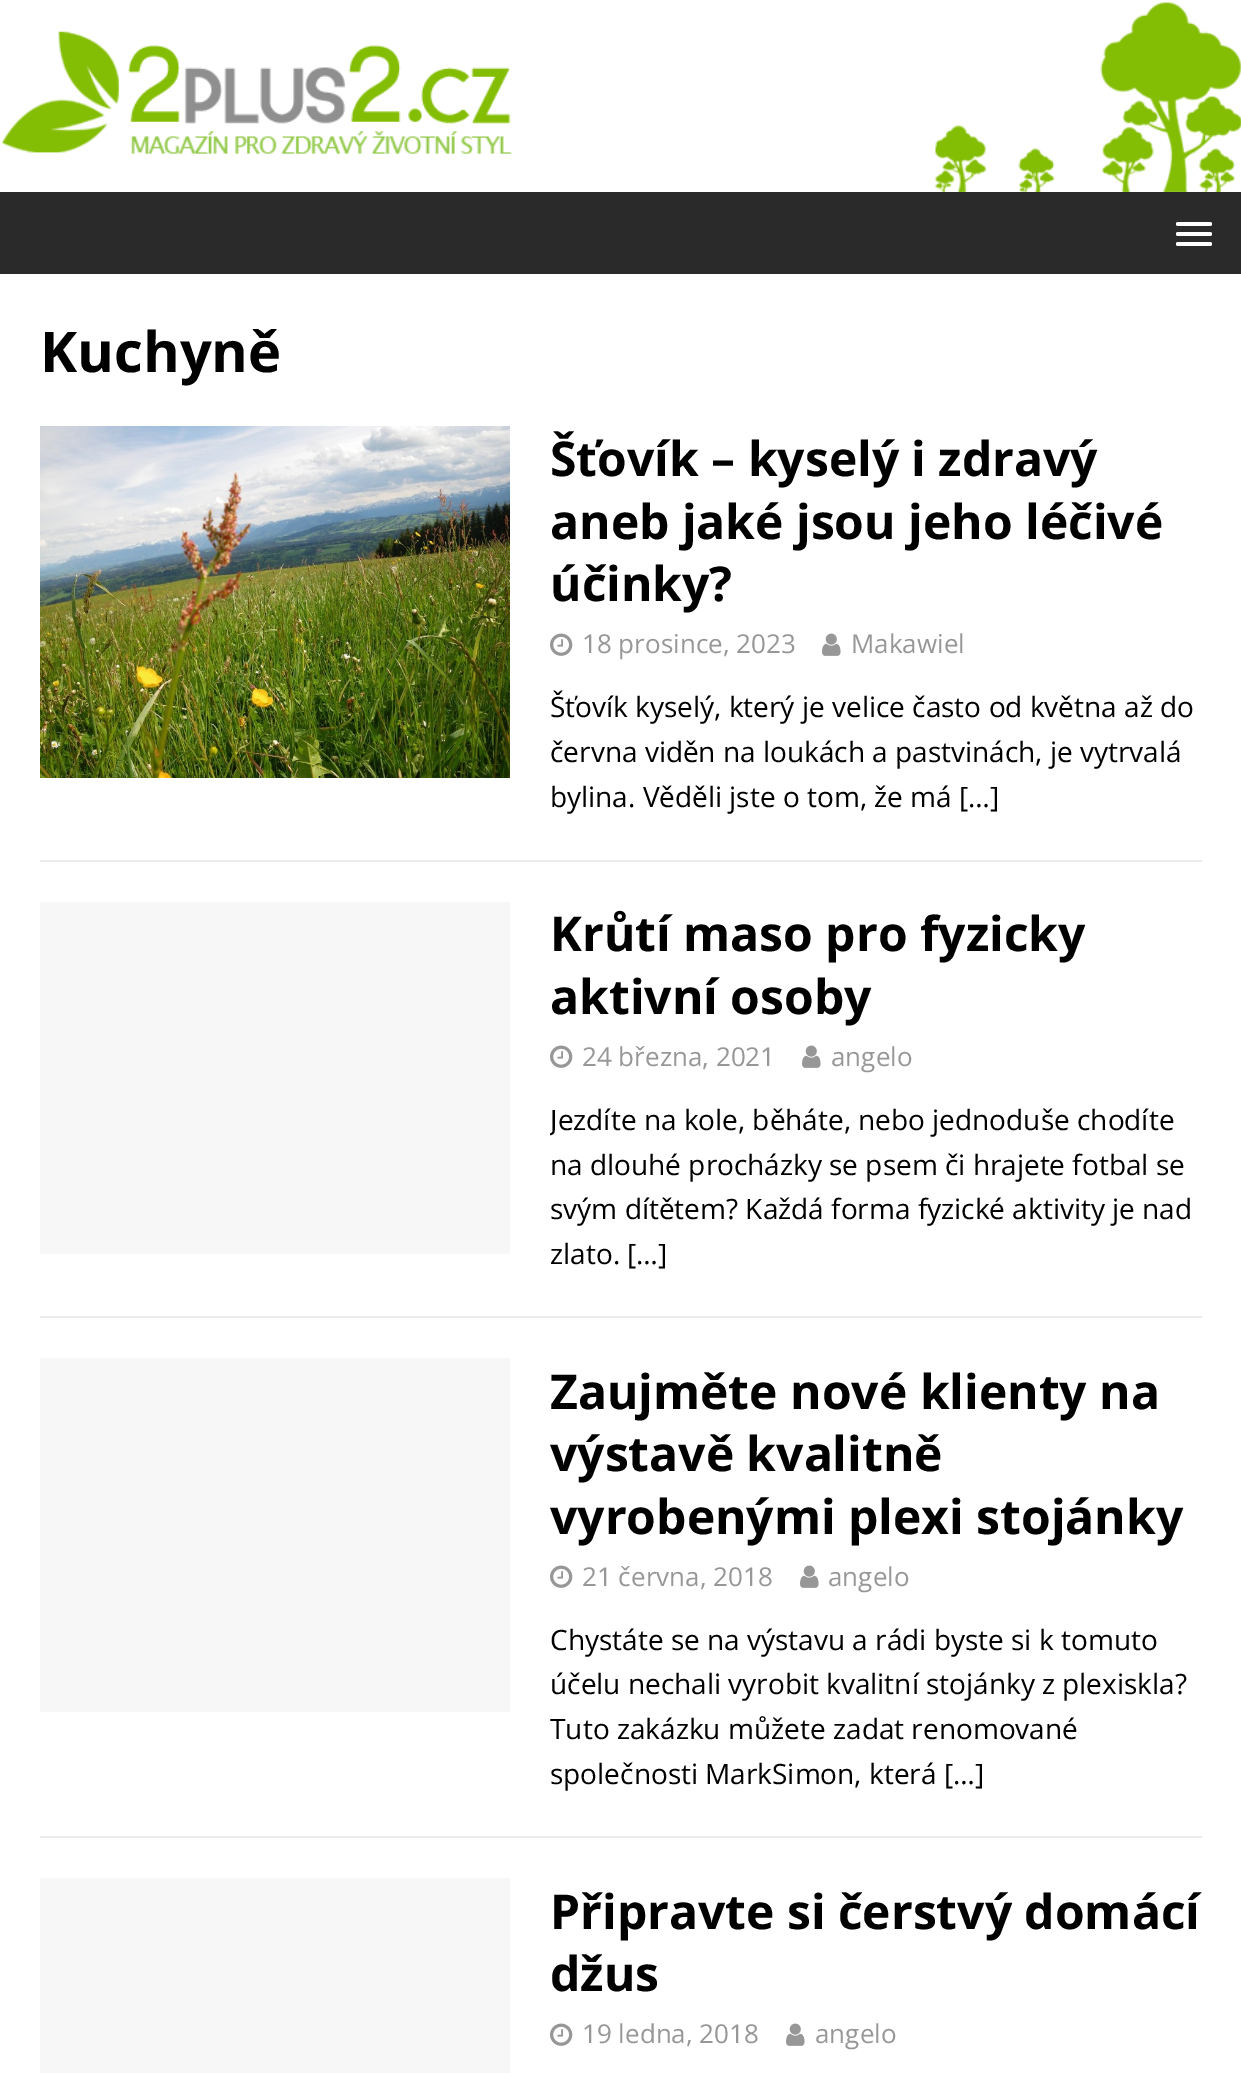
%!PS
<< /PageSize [1241 2073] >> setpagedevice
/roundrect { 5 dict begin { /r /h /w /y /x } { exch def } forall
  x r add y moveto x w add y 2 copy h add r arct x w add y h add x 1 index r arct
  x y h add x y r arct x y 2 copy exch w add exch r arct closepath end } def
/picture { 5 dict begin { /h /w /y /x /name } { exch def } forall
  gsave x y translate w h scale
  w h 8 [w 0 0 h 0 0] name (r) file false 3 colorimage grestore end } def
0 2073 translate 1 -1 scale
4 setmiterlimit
1 setgray
0 0 1241 2073 rectfill
(img1.rgb) 2 2 1239 190 picture
0.165 setgray
0 192 1241 82 rectfill
1 setgray
1176 222 36 4 2 roundrect fill
1176 232 36 4 2 roundrect fill
1176 242 36 4 2 roundrect fill
/OpenSans-Bold [56 0 0 -56 0 0] selectfont
0 setgray
40 372 moveto (Kuchyně) show
0.922 setgray
40 860 1162 2 rectfill
(img2.rgb) 40 426 470 352 picture
/OpenSans-Bold [48 0 0 -48 0 0] selectfont
0 setgray
550 476 moveto (Šťovík – kyselý i zdravý) show
550 539 moveto (aneb jaké jsou jeho léčivé) show
550 601 moveto (účinky?) show
(img3.rgb) 550 633 23 23 picture
/OpenSans-Regular [26 0 0 -26 0 0] selectfont
0.592 setgray
582 653 moveto (18 prosince, 2023) show
(img4.rgb) 822 633 19 23 picture
851 653 moveto (Makawiel) show
/OpenSans-Regular [28 0 0 -28 0 0] selectfont
0 setgray
550 717 moveto (Šťovík kyselý, který je velice často od května až do) show
550 762 moveto (června viděn na loukách a pastvinách, je vytrvalá) show
550 807 moveto (bylina. Věděli jste o tom, že má […]) show
0.922 setgray
40 1316 1162 2 rectfill
0.969 setgray
40 902 470 352 rectfill
/OpenSans-Bold [48 0 0 -48 0 0] selectfont
0 setgray
550 951 moveto (Krůtí maso pro fyzicky) show
550 1014 moveto (aktivní osoby) show
(img3.rgb) 550 1045 23 23 picture
/OpenSans-Regular [26 0 0 -26 0 0] selectfont
0.592 setgray
582 1066 moveto (24 března, 2021) show
(img4.rgb) 802 1045 19 23 picture
831 1066 moveto (angelo) show
gsave
550 1098 652 178 rectclip
/OpenSans-Regular [28 0 0 -28 0 0] selectfont
0 setgray
550 1130 moveto (Jezdíte na kole, běháte, nebo jednoduše chodíte) show
grestore
/OpenSans-Regular [28 0 0 -28 0 0] selectfont
0 setgray
550 1175 moveto (na dlouhé procházky se psem či hrajete fotbal se) show
550 1219 moveto (svým dítětem? Každá forma fyzické aktivity je nad) show
550 1264 moveto (zlato. […]) show
0.922 setgray
40 1836 1162 2 rectfill
0.969 setgray
40 1358 470 354 rectfill
/OpenSans-Bold [48 0 0 -48 0 0] selectfont
0 setgray
550 1409 moveto (Zaujměte nové klienty na) show
550 1471 moveto (výstavě kvalitně) show
550 1534 moveto (vyrobenými plexi stojánky) show
(img3.rgb) 550 1565 23 23 picture
/OpenSans-Regular [26 0 0 -26 0 0] selectfont
0.592 setgray
582 1586 moveto (21 června, 2018) show
(img4.rgb) 800 1565 19 23 picture
828 1586 moveto (angelo) show
/OpenSans-Regular [28 0 0 -28 0 0] selectfont
0 setgray
550 1650 moveto (Chystáte se na výstavu a rádi byste si k tomuto) show
550 1694 moveto (účelu nechali vyrobit kvalitní stojánky z plexiskla?) show
550 1739 moveto (Tuto zakázku můžete zadat renomované) show
550 1784 moveto (společnosti MarkSimon, která […]) show
0.969 setgray
40 1878 470 195 rectfill
/OpenSans-Bold [48 0 0 -48 0 0] selectfont
0 setgray
550 1929 moveto (Připravte si čerstvý domácí) show
550 1991 moveto (džus) show
(img3.rgb) 550 2023 23 23 picture
/OpenSans-Regular [26 0 0 -26 0 0] selectfont
0.592 setgray
582 2043 moveto (19 ledna, 2018) show
(img4.rgb) 786 2023 19 23 picture
815 2043 moveto (angelo) show
showpage
